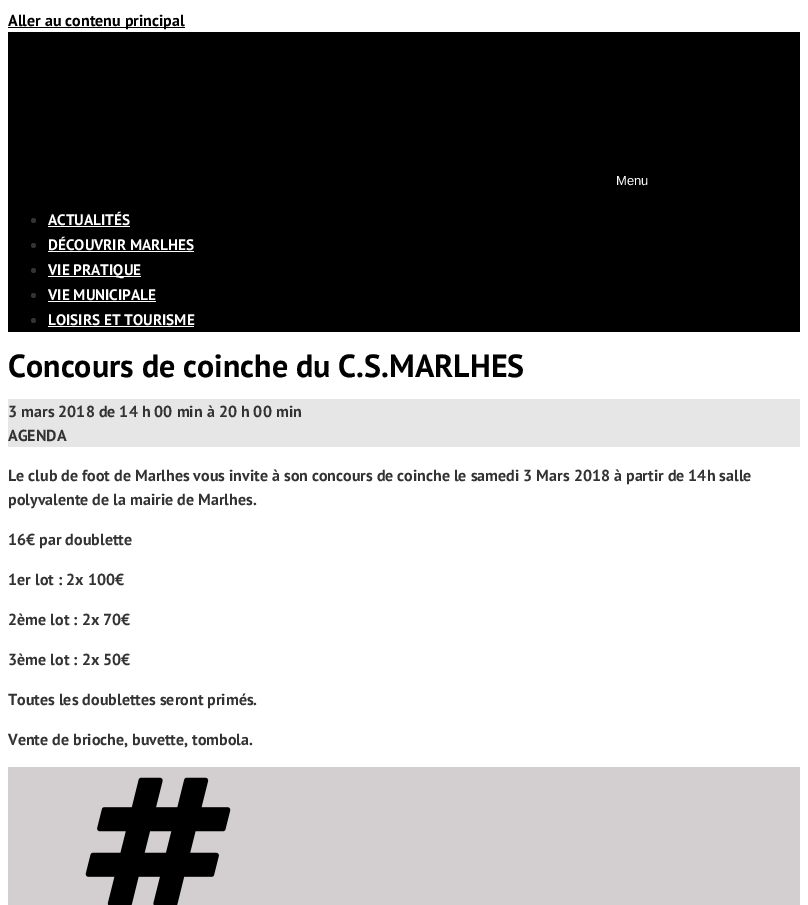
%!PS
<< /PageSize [808 905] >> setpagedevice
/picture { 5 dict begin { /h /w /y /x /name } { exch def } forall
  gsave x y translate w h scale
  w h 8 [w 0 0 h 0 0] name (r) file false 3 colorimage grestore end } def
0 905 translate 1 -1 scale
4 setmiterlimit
1 setgray
0 0 808 905 rectfill
0 setgray
8 27 177 1 rectfill
/PTSans-Bold [16 0 0 -16 0 0] selectfont
8 26 moveto (Aller au contenu principal) show
8 32 792 300 rectfill
/LiberationSans-Regular [13 0 0 -13 0 0] selectfont
1 setgray
616 185 moveto (Menu) show
0.2 setgray
newpath 33.5 220.5 2.5 0 360 arc closepath fill
/PTSans-Bold [15.25 0 0 -15.25 0 0] selectfont
1 setgray
48 225 moveto (ACTUALITÉS) show
48 226 82 1 rectfill
0.2 setgray
newpath 33.5 245.5 2.5 0 360 arc closepath fill
1 setgray
48 250 moveto (DÉCOUVRIR MARLHES) show
48 251 146 1 rectfill
0.2 setgray
newpath 33.5 270.5 2.5 0 360 arc closepath fill
1 setgray
48 276 93 1 rectfill
48 275 moveto (VIE PRATIQUE) show
0.2 setgray
newpath 33.5 295.5 2.5 0 360 arc closepath fill
1 setgray
48 300 moveto (VIE MUNICIPALE) show
48 301 108 1 rectfill
0.2 setgray
newpath 33.5 320.5 2.5 0 360 arc closepath fill
1 setgray
48 325 moveto (LOISIRS ET TOURISME) show
48 326 146 1 rectfill
/PTSans-Bold [32 0 0 -32 0 0] selectfont
0 setgray
8 377 moveto (Concours de coinche du C.S.MARLHES) show
0.902 setgray
8 399 792 48 rectfill
/PTSans-Bold [16 0 0 -16 0 0] selectfont
0.2 setgray
8 417 moveto (3 mars 2018 de 14 h 00 min à 20 h 00 min) show
8 441 moveto (AGENDA) show
8 481 moveto (Le club de foot de Marlhes vous invite à son concours de coinche le samedi 3 Mars 2018 à partir de 14h salle) show
8 505 moveto (polyvalente de la mairie de Marlhes.) show
8 545 moveto (16€ par doublette) show
8 585 moveto (1er lot : 2x 100€) show
8 625 moveto (2ème lot : 2x 70€) show
8 665 moveto (3ème lot : 2x 50€) show
8 705 moveto (Toutes les doublettes seront primés.) show
8 745 moveto (Vente de brioche, buvette, tombola.) show
0.827 0.812 0.82 setrgbcolor
8 767 792 138 rectfill
(img1.rgb) 85 777 146 128 picture
showpage
